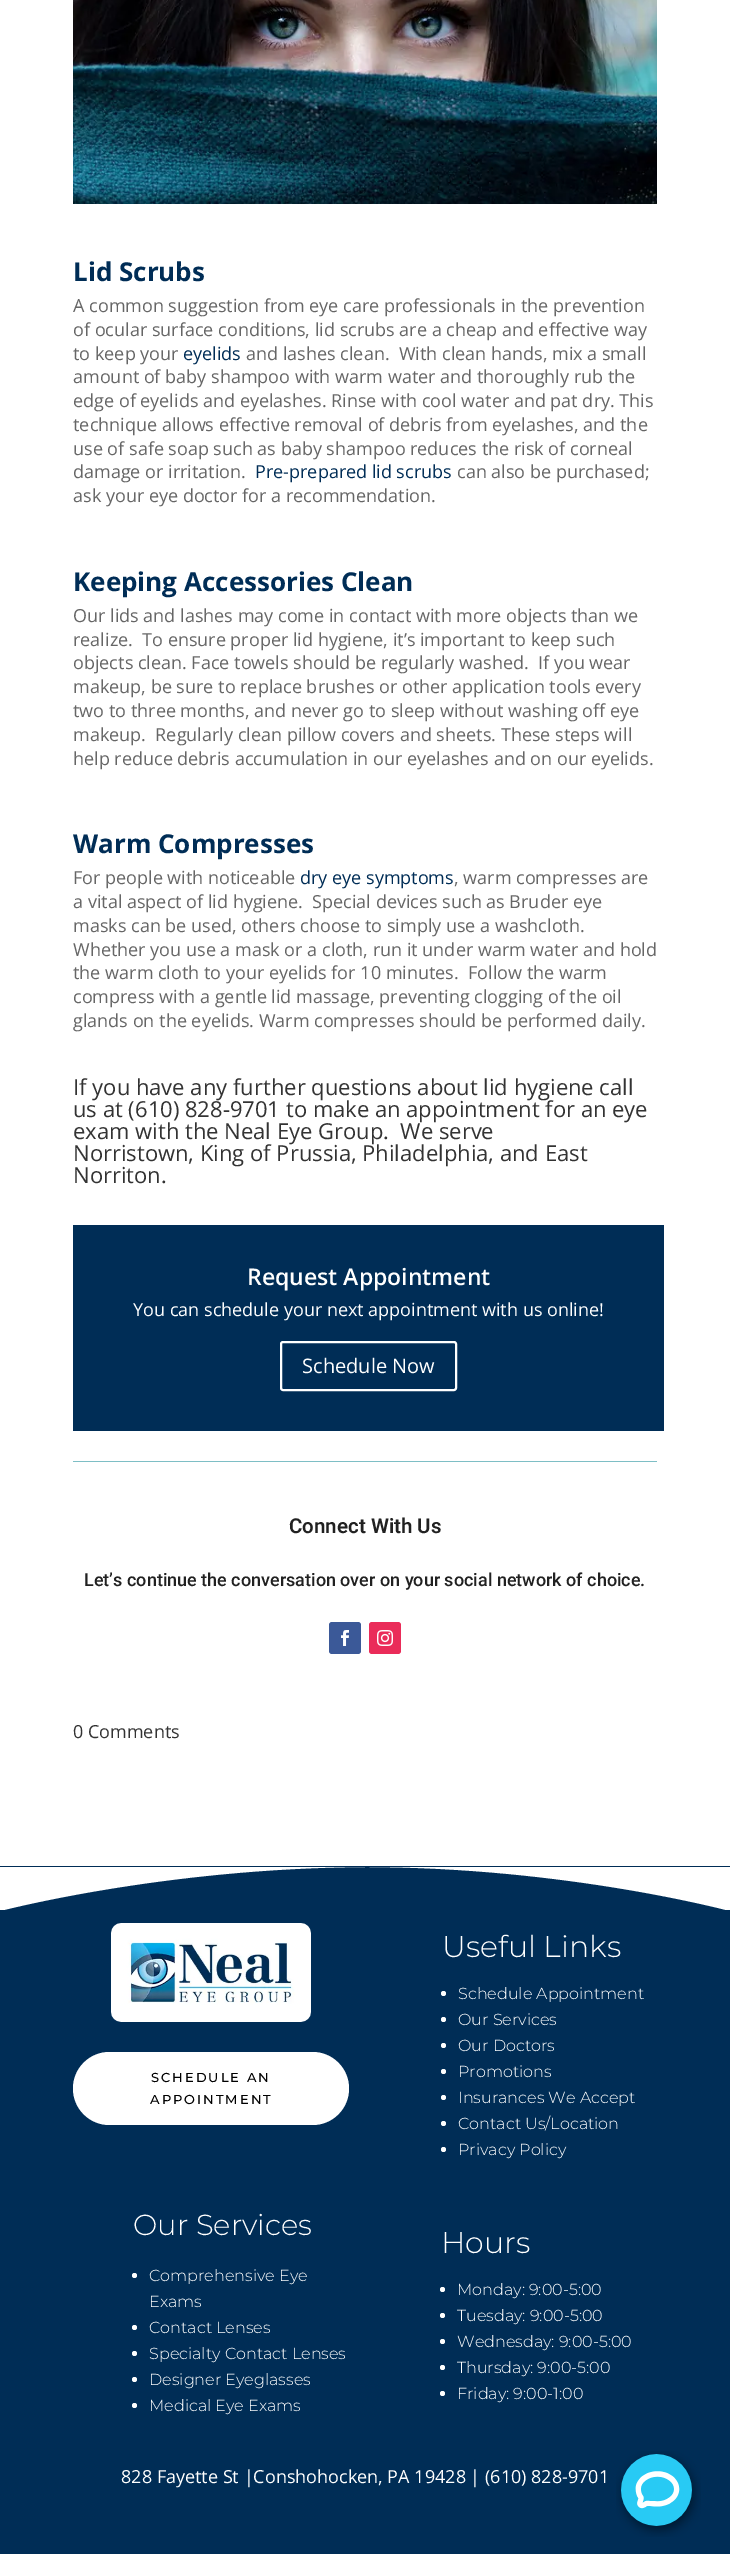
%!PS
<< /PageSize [730 2554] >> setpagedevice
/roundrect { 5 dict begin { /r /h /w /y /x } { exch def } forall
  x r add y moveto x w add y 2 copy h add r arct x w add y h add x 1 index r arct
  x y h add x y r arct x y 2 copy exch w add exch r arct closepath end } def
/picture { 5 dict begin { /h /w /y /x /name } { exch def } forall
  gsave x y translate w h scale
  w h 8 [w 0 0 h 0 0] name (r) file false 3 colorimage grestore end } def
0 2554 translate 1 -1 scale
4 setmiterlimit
1 setgray
0 0 730 2554 rectfill
(img1.rgb) 73 0 584 204 picture
/OpenSans-Bold [26 0 0 -26 0 0] selectfont
0 0.176 0.337 setrgbcolor
73 281 moveto (Lid Scrubs) show
/OpenSans-Regular [18 0 0 -18 0 0] selectfont
0.4 setgray
73 312 moveto (A common suggestion from eye care professionals in the prevention) show
73 336 moveto (of ocular surface conditions, lid scrubs are a cheap and effective way) show
73 360 moveto (to keep your) show
0 0.176 0.337 setrgbcolor
183 360 moveto (eyelids) show
0.4 setgray
246 360 moveto (and lashes clean.  With clean hands, mix a small) show
73 383 moveto (amount of baby shampoo with warm water and thoroughly rub the) show
73 407 moveto (edge of eyelids and eyelashes. Rinse with cool water and pat dry. This) show
73 431 moveto (technique allows effective removal of debris from eyelashes, and the) show
73 455 moveto (use of safe soap such as baby shampoo reduces the risk of corneal) show
73 478 moveto (damage or irritation.) show
0 0.176 0.337 setrgbcolor
255 478 moveto (Pre-prepared lid scrubs) show
0.4 setgray
457 478 moveto (can also be purchased;) show
73 502 moveto (ask your eye doctor for a recommendation.) show
/OpenSans-Bold [26 0 0 -26 0 0] selectfont
0 0.176 0.337 setrgbcolor
73 591 moveto (Keeping Accessories Clean) show
/OpenSans-Regular [18 0 0 -18 0 0] selectfont
0.4 setgray
73 622 moveto (Our lids and lashes may come in contact with more objects than we) show
73 646 moveto (realize.  To ensure proper lid hygiene, it’s important to keep such) show
73 669 moveto (objects clean. Face towels should be regularly washed.  If you wear) show
73 693 moveto (makeup, be sure to replace brushes or other application tools every) show
73 717 moveto (two to three months, and never go to sleep without washing off eye) show
73 741 moveto (makeup.  Regularly clean pillow covers and sheets. These steps will) show
73 765 moveto (help reduce debris accumulation in our eyelashes and on our eyelids.) show
/OpenSans-Bold [26 0 0 -26 0 0] selectfont
0 0.176 0.337 setrgbcolor
73 853 moveto (Warm Compresses) show
/OpenSans-Regular [18 0 0 -18 0 0] selectfont
0.4 setgray
73 884 moveto (For people with noticeable) show
0 0.176 0.337 setrgbcolor
300 884 moveto (dry eye symptoms) show
0.4 setgray
454 884 moveto (, warm compresses are) show
73 908 moveto (a vital aspect of lid hygiene.  Special devices such as Bruder eye) show
73 932 moveto (masks can be used, others choose to simply use a washcloth.) show
73 956 moveto (Whether you use a mask or a cloth, run it under warm water and hold) show
73 979 moveto (the warm cloth to your eyelids for 10 minutes.  Follow the warm) show
73 1003 moveto (compress with a gentle lid massage, preventing clogging of the oil) show
73 1027 moveto (glands on the eyelids. Warm compresses should be performed daily.) show
/OpenSans-Regular [22 0 0 -22 0 0] selectfont
0.2 setgray
73 1095 moveto (If you have any further questions about lid hygiene call) show
73 1117 moveto (us at \(610\) 828-9701 to make an appointment for an eye) show
73 1139 moveto (exam with the Neal Eye Group.  We serve) show
73 1161 moveto (Norristown, King of Prussia, Philadelphia, and East) show
73 1183 moveto (Norriton.) show
0 0.176 0.337 setrgbcolor
73 1225 591 206 rectfill
/OpenSans-SemiBold [23 0 0 -23 0 0] selectfont
1 setgray
247 1285 moveto (Request Appointment) show
/OpenSans-Regular [18 0 0 -18 0 0] selectfont
133 1316 moveto (You can schedule your next appointment with us online!) show
2 setlinewidth
281 1342 175 48 2 roundrect stroke
/OpenSans-Regular [20 0 0 -20 0 0] selectfont
302 1373 moveto (Schedule Now) show
0.494 0.745 0.773 setrgbcolor
73 1461 584 1 rectfill
/Roboto-SemiBold [20.5 0 0 -20.5 0 0] selectfont
0.129 setgray
289 1533 moveto (Connect With Us) show
/Roboto-Medium [18 0 0 -18 0 0] selectfont
84 1586 moveto (Let’s continue the conversation over on your social network of choice.) show
0.231 0.349 0.596 setrgbcolor
329 1622 32 32 3 roundrect fill
(img2.rgb) 341 1630 8 16 picture
0.918 0.173 0.349 setrgbcolor
369 1622 32 32 3 roundrect fill
(img3.rgb) 377 1630 16 16 picture
/OpenSans-Regular [18 0 0 -18 0 0] selectfont
0.2 setgray
73 1738 moveto (0 Comments) show
0 0.176 0.337 setrgbcolor
0 1866 730 688 rectfill
gsave
0 1866 730 44 rectclip
1 setgray
newpath 730 1867 moveto 730 1911 lineto 730 1911 567 1867 365 1867 curveto 163 1868 0 1911 0 1911 curveto 0 1867 lineto closepath fill
grestore
(img4.rgb) 111 1923 200 99 picture
1 setgray
73 2052 276 73 36.5 roundrect fill
/Montserrat-Medium [13 0 0 -13 0 0] selectfont
0 setgray
151 2082 moveto 2 0 (SCHEDULE AN) ashow
150 2104 moveto 2 0 (APPOINTMENT) ashow
/Montserrat-Light [30 0 0 -30 0 0] selectfont
1 setgray
442 1957 moveto (Useful Links) show
newpath 443.5 1993.5 2.5 0 360 arc closepath fill
/Montserrat-Light [16 0 0 -16 0 0] selectfont
458 1999 moveto (Schedule Appointment) show
newpath 443.5 2019.5 2.5 0 360 arc closepath fill
458 2025 moveto (Our Services) show
newpath 443.5 2045.5 2.5 0 360 arc closepath fill
458 2051 moveto (Our Doctors) show
newpath 443.5 2071.5 2.5 0 360 arc closepath fill
458 2077 moveto (Promotions) show
newpath 443.5 2097.5 2.5 0 360 arc closepath fill
458 2103 moveto (Insurances We Accept) show
newpath 443.5 2123.5 2.5 0 360 arc closepath fill
458 2129 moveto (Contact Us/Location) show
newpath 443.5 2149.5 2.5 0 360 arc closepath fill
458 2155 moveto (Privacy Policy) show
/Montserrat-Light [29 0 0 -29 0 0] selectfont
133 2235 moveto (Our Services) show
newpath 134.5 2275.5 2.5 0 360 arc closepath fill
/Montserrat-Light [16 0 0 -16 0 0] selectfont
149 2281 moveto (Comprehensive Eye) show
149 2307 moveto (Exams) show
newpath 134.5 2327.5 2.5 0 360 arc closepath fill
149 2333 moveto (Contact Lenses) show
newpath 134.5 2353.5 2.5 0 360 arc closepath fill
149 2359 moveto (Specialty Contact Lenses) show
newpath 134.5 2379.5 2.5 0 360 arc closepath fill
149 2385 moveto (Designer Eyeglasses) show
newpath 134.5 2405.5 2.5 0 360 arc closepath fill
149 2411 moveto (Medical Eye Exams) show
/Montserrat-Light [30 0 0 -30 0 0] selectfont
441 2253 moveto (Hours) show
newpath 442.5 2289.5 2.5 0 360 arc closepath fill
/Montserrat-Light [16 0 0 -16 0 0] selectfont
457 2295 moveto (Monday: 9:00-5:00) show
newpath 442.5 2315.5 2.5 0 360 arc closepath fill
457 2321 moveto (Tuesday: 9:00-5:00) show
newpath 442.5 2341.5 2.5 0 360 arc closepath fill
457 2347 moveto (Wednesday: 9:00-5:00) show
newpath 442.5 2367.5 2.5 0 360 arc closepath fill
457 2373 moveto (Thursday: 9:00-5:00) show
newpath 442.5 2393.5 2.5 0 360 arc closepath fill
457 2399 moveto (Friday: 9:00-1:00) show
/OpenSans-Regular [18 0 0 -18 0 0] selectfont
121 2483 moveto (828 Fayette St |Conshohocken, PA 19428 | \(610\) 828-9701) show
(img5.rgb) 616 2451 85 86 picture
showpage
